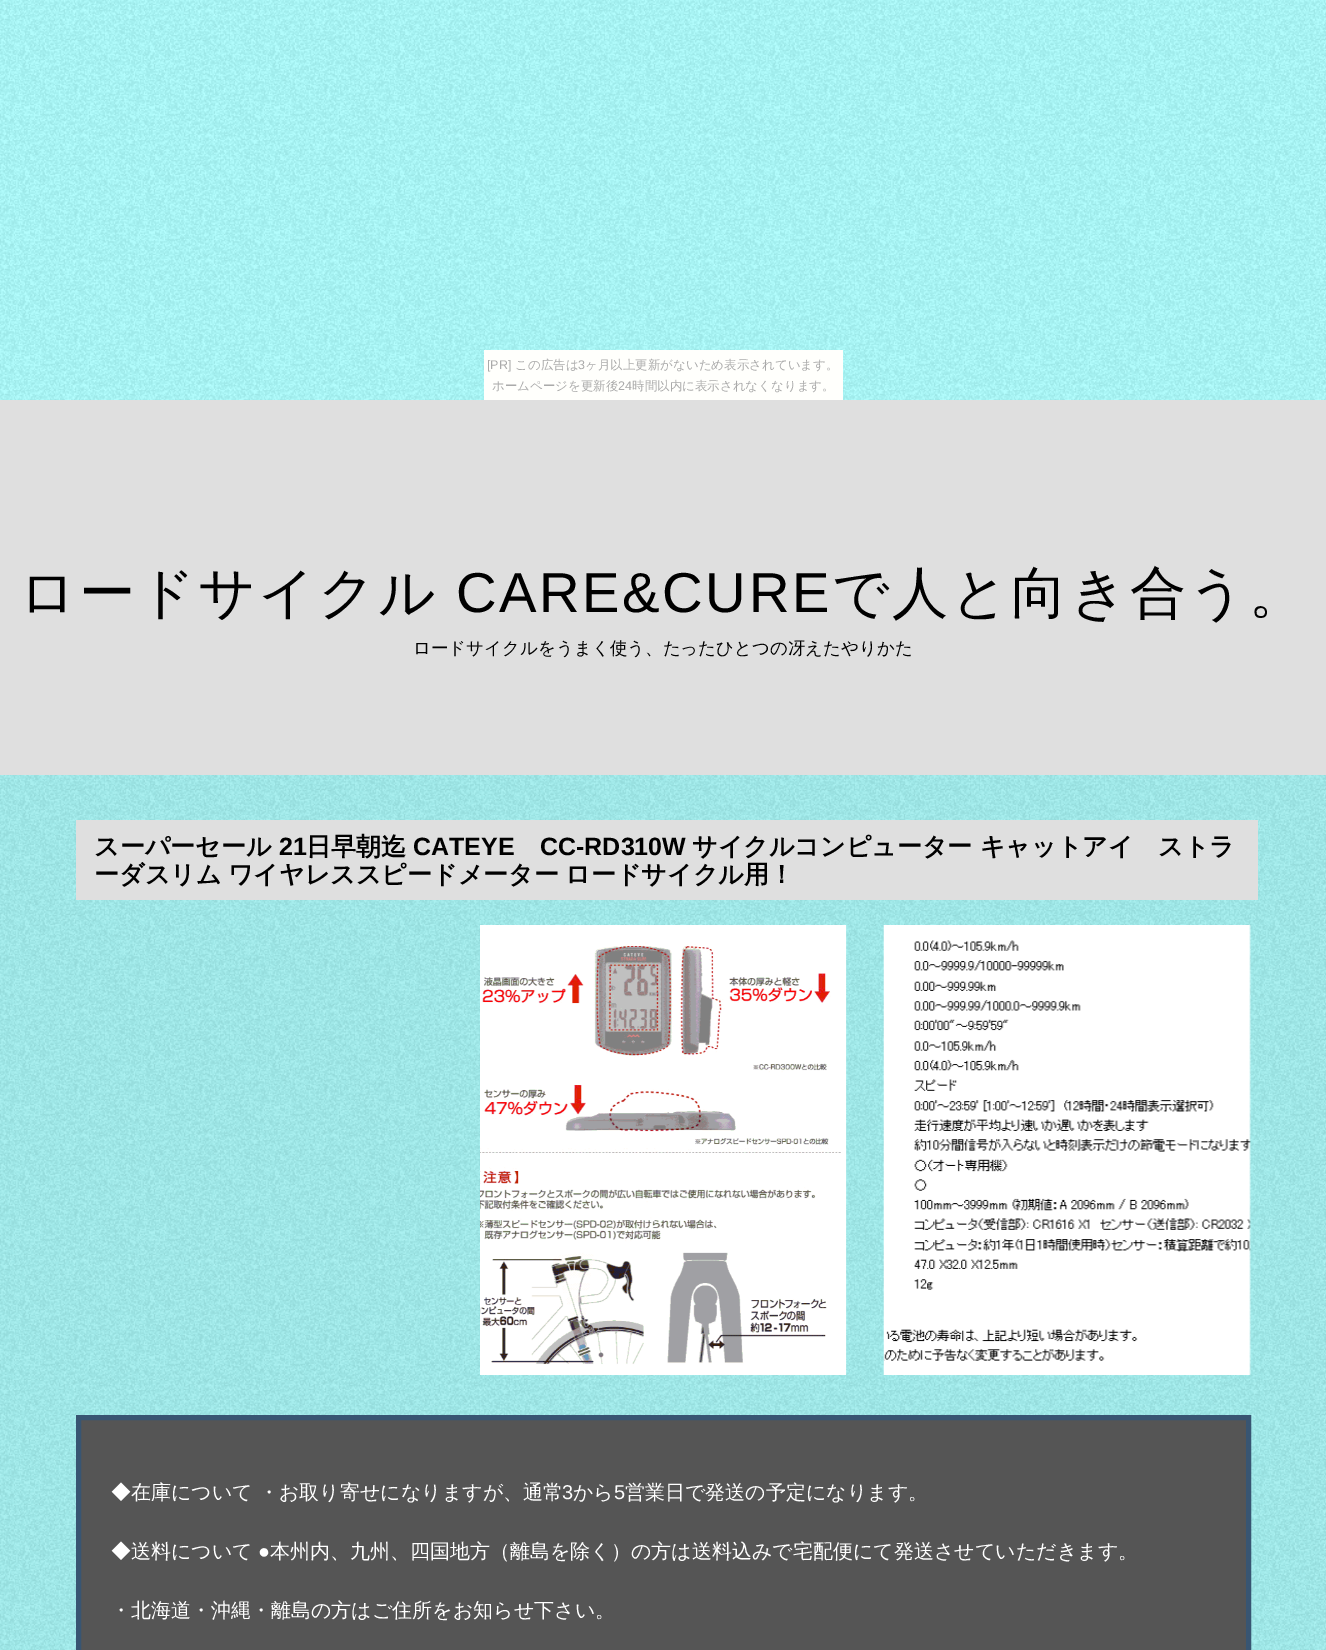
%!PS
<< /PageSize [1326 1650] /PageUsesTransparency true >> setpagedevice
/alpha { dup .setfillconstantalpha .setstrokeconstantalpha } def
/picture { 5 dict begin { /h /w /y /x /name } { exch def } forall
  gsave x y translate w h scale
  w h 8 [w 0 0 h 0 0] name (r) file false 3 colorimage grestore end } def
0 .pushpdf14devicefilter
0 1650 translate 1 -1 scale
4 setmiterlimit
0.678 1 1 setrgbcolor
0 0 1326 1650 rectfill
(img1.rgb) 0 0 1326 1650 picture
1 1 0.988 setrgbcolor
484 350 359 50 rectfill
/LiberationSans-Regular [12.5 0 0 -12.5 0 0] selectfont
0.667 setgray
487 369 moveto ([PR]) show
/WenQuanYiZenHei-Medium [12.5 0 0 -12.5 0 0] selectfont
515 369 moveto (この広告は) show
/LiberationSans-Regular [12.5 0 0 -12.5 0 0] selectfont
578 369 moveto (3) show
/WenQuanYiZenHei-Medium [12.5 0 0 -12.5 0 0] selectfont
585 369 moveto (ヶ月以上更新がないため表示されています。) show
492 390 moveto (ホームページを更新後) show
/LiberationSans-Regular [12.5 0 0 -12.5 0 0] selectfont
618 390 moveto (24) show
/WenQuanYiZenHei-Medium [12.5 0 0 -12.5 0 0] selectfont
632 390 moveto (時間以内に表示されなくなります。) show
0.875 setgray
0 400 1326 375 rectfill
/WenQuanYiZenHei-Medium [56.25 0 0 -56.25 0 0] selectfont
0 setgray
19 612 moveto 2.5 0 (ロードサイクル) ashow
/LiberationSans-Regular [56.25 0 0 -56.25 0 0] selectfont
456 612 moveto 2.5 0 (CARE&CURE) ashow
/WenQuanYiZenHei-Medium [56.25 0 0 -56.25 0 0] selectfont
832 612 moveto 2.5 0 (で人と向き合う。) ashow
/WenQuanYiZenHei-Medium [17.5 0 0 -17.5 0 0] selectfont
413 654 moveto (ロードサイクルをうまく使う、たったひとつの冴えたやりかた) show
0.05 alpha
0 775 1326 875 rectfill
1 alpha
0.875 setgray
76 820 1182 80 rectfill
/WenQuanYiZenHei-Bold [25 0 0 -25 0 0] selectfont
0 setgray
94 855 moveto (スーパーセール) show
/LiberationSans-Bold [25 0 0 -25 0 0] selectfont
279 855 moveto (21) show
/WenQuanYiZenHei-Bold [25 0 0 -25 0 0] selectfont
306 855 moveto (日早朝迄) show
/LiberationSans-Bold [25 0 0 -25 0 0] selectfont
413 855 moveto (CATEYE) show
540 855 moveto (CC-RD310W) show
/WenQuanYiZenHei-Bold [25 0 0 -25 0 0] selectfont
692 855 moveto (サイクルコンピューター キャットアイ　ストラ) show
94 883 moveto -1 0 32 (ーダスリム ワイヤレススピードメーター ロードサイクル用！) widthshow
(img2.rgb) 480 925 367 450 picture
(img3.rgb) 883 925 368 450 picture
0.333 setgray
newpath 78.5 1417.5 moveto 1248.5 1417.5 lineto 1248.5 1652.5 lineto 78.5 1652.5 lineto closepath gsave fill grestore
0.22 0.333 0.447 setrgbcolor
5 setlinewidth
stroke
/WenQuanYiZenHei-Medium [20 0 0 -20 0 0] selectfont
1 setgray
111 1499 moveto (◆在庫について ・お取り寄せになりますが、通常) show
/LiberationSans-Regular [20 0 0 -20 0 0] selectfont
562 1499 moveto (3) show
/WenQuanYiZenHei-Medium [20 0 0 -20 0 0] selectfont
573 1499 moveto (から) show
/LiberationSans-Regular [20 0 0 -20 0 0] selectfont
614 1499 moveto (5) show
/WenQuanYiZenHei-Medium [20 0 0 -20 0 0] selectfont
625 1499 moveto (営業日で発送の予定になります。) show
111 1558 moveto (◆送料について) show
/LiberationSans-Regular [20 0 0 -20 0 0] selectfont
258 1558 moveto (●) show
/WenQuanYiZenHei-Medium [20 0 0 -20 0 0] selectfont
270 1558 moveto (本州内、九州、四国地方（離島を除く）の方は送料込みで宅配便にて発送させていただきます。) show
111 1617 moveto (・北海道・沖縄・離島の方はご住所をお知らせ下さい。) show
.poppdf14devicefilter showpage
